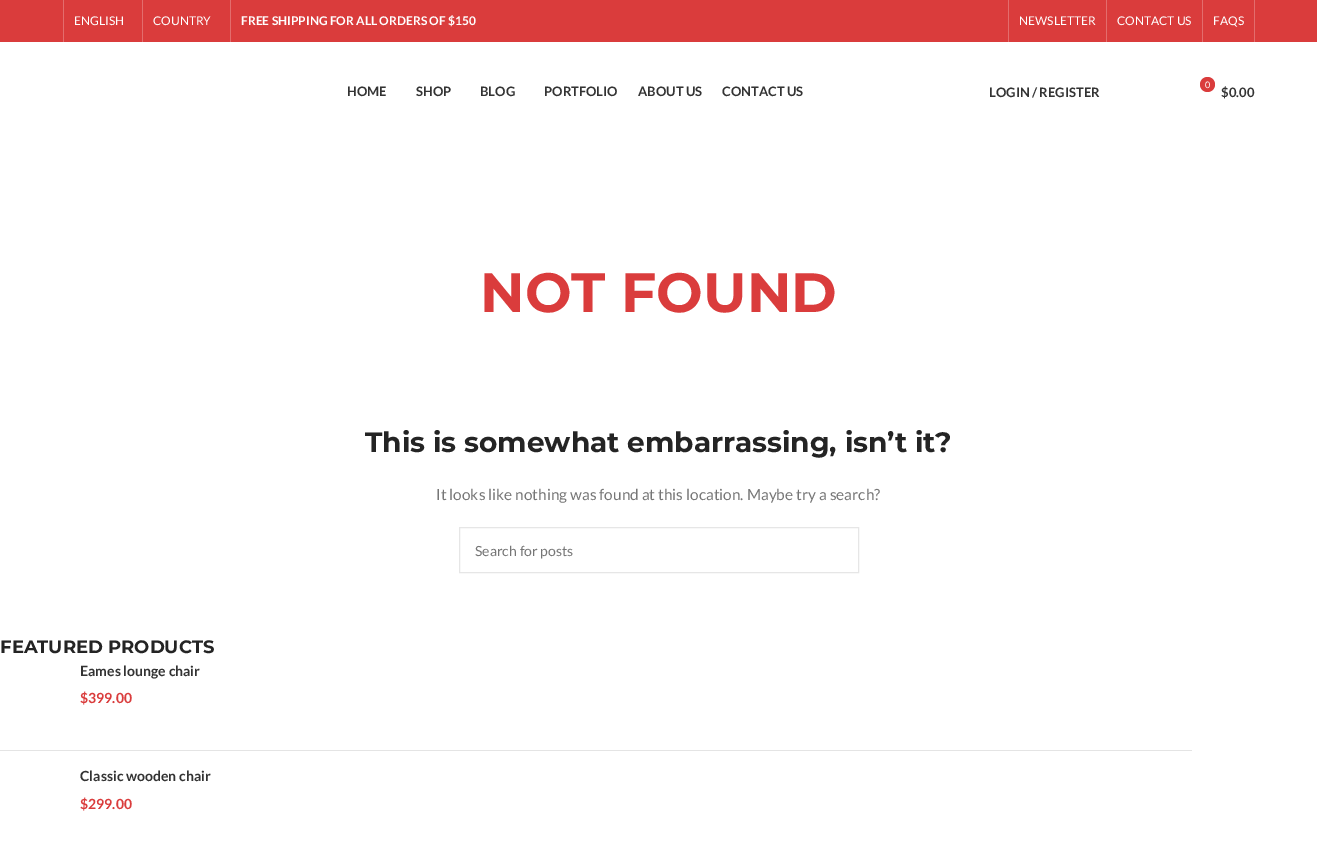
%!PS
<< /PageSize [1317 854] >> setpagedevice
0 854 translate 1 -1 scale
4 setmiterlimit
1 setgray
0 0 1317 854 rectfill
0.855 0.235 0.235 setrgbcolor
0 0 1317 42 rectfill
0.89 0.427 0.427 setrgbcolor
63 0 1 42 rectfill
/Lato-Regular [12 0 0 -12 0 0] selectfont
1 setgray
74 25 moveto (ENGLISH) show
0.89 0.427 0.427 setrgbcolor
142 0 1 42 rectfill
1 setgray
153 25 moveto (COUNTRY) show
0.89 0.427 0.427 setrgbcolor
230 0 1 42 rectfill
/Lato-Bold [12 0 0 -12 0 0] selectfont
1 setgray
241 25 moveto (FREE SHIPPING FOR ALL ORDERS OF $150) show
0.89 0.427 0.427 setrgbcolor
1008 0 1 42 rectfill
/Lato-Regular [12 0 0 -12 0 0] selectfont
1 setgray
1019 25 moveto (NEWSLETTER) show
0.89 0.427 0.427 setrgbcolor
1106 0 1 42 rectfill
1 setgray
1117 25 moveto (CONTACT US) show
0.89 0.427 0.427 setrgbcolor
1202 0 1 42 rectfill
1 setgray
1213 25 moveto (FAQS) show
0.89 0.427 0.427 setrgbcolor
1254 0 1 42 rectfill
/Lato-Bold [13 0 0 -13 0 0] selectfont
0.2 setgray
347 96 moveto (HOME) show
416 96 moveto (SHOP) show
480 96 moveto (BLOG) show
544 96 moveto (PORTFOLIO) show
638 96 moveto (ABOUT US) show
722 96 moveto (CONTACT US) show
989 97 moveto (LOGIN / REGISTER) show
0.855 0.235 0.235 setrgbcolor
newpath 1207.5 84.5 7.5 0 360 arc closepath fill
/Lato-Regular [9 0 0 -9 0 0] selectfont
1 setgray
1205 88 moveto (0) show
/Lato-Bold [13 0 0 -13 0 0] selectfont
0.2 setgray
1221 97 moveto ($0.00) show
/Montserrat-Bold [55.25 0 0 -55.25 0 0] selectfont
0.855 0.235 0.235 setrgbcolor
480 312 moveto (NOT FOUND) show
/Montserrat-Bold [28 0 0 -28 0 0] selectfont
0.141 setgray
365 452 moveto (This is somewhat embarrassing, isn’t it?) show
/Lato-Regular [15.4 0 0 -15.4 0 0] selectfont
0.463 setgray
436 500 moveto (It looks like nothing was found at this location. Maybe try a search?) show
0.902 setgray
459.5 527.5 399 45 rectstroke
/Lato-Regular [14 0 0 -14 0 0] selectfont
0.463 setgray
475 556 moveto (Search for posts) show
/Montserrat-Bold [18 0 0 -18 0 0] selectfont
0.141 setgray
0 653 moveto (FEATURED PRODUCTS) show
0.894 setgray
0 750 1192 1 rectfill
/Lato-Bold [14 0 0 -14 0 0] selectfont
0.2 setgray
80 676 moveto (Eames lounge chair) show
0.855 0.235 0.235 setrgbcolor
80 703 moveto ($399.00) show
0.2 setgray
80 781 moveto (Classic wooden chair) show
0.855 0.235 0.235 setrgbcolor
80 809 moveto ($299.00) show
showpage
